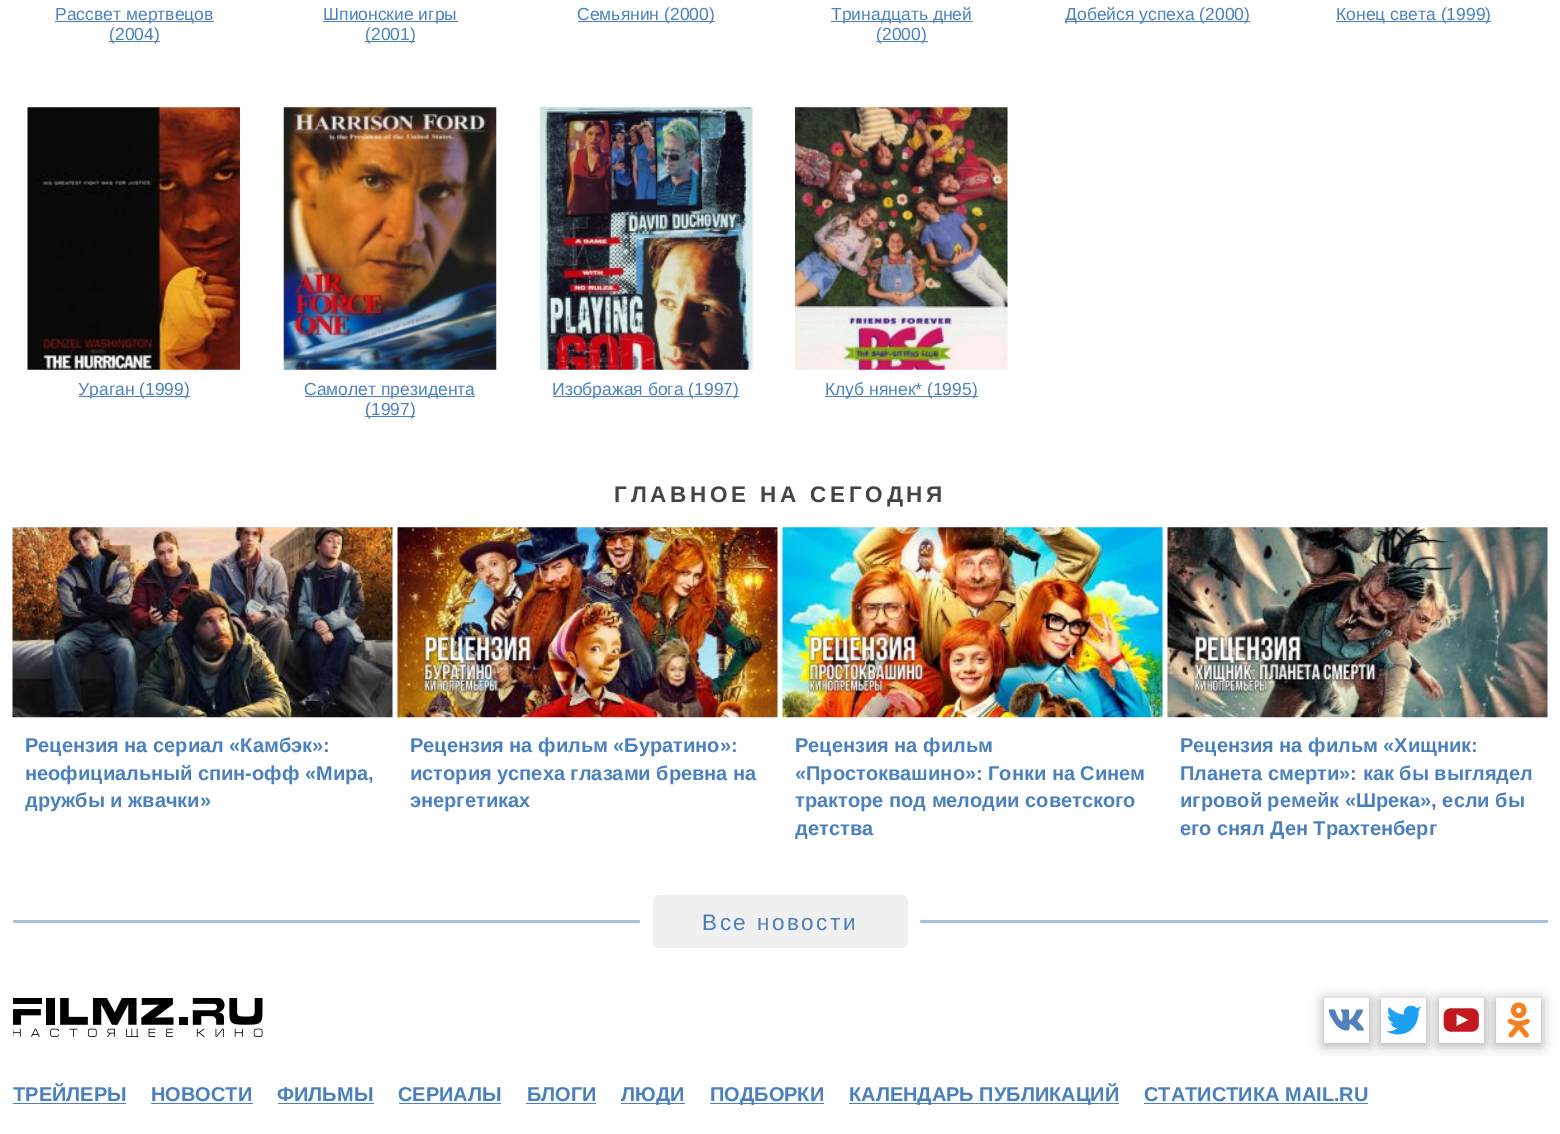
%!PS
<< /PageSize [1560 1134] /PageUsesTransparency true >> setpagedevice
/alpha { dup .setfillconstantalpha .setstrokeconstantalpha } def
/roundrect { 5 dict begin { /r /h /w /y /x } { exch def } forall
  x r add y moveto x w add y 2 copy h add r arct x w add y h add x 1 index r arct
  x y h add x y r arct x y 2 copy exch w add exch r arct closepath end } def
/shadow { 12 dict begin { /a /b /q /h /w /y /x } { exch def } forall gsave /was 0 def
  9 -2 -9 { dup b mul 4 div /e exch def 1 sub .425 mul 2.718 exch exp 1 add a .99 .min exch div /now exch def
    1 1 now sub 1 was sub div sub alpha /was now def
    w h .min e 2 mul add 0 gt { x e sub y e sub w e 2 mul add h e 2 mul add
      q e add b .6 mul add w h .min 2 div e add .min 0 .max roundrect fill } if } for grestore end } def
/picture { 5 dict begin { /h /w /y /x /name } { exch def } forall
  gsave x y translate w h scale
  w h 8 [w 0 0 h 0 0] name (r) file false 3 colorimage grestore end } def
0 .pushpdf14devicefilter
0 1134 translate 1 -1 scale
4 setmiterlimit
1 setgray
0 0 1560 1134 rectfill
0.29 0.502 0.745 setrgbcolor
55 21 159 1 rectfill
/LiberationSans-Regular [17.5 0 0 -17.5 0 0] selectfont
55 20 moveto (Рассвет мертвецов) show
109 41 51 1 rectfill
109 40 moveto (\(2004\)) show
323 21 135 1 rectfill
323 20 moveto (Шпионские игры) show
365 41 50 1 rectfill
365 40 moveto (\(2001\)) show
578 21 137 1 rectfill
577 20 moveto (Семьянин \(2000\)) show
831 21 142 1 rectfill
831 20 moveto (Тринадцать дней) show
876 41 52 1 rectfill
876 40 moveto (\(2000\)) show
1065 21 185 1 rectfill
1065 20 moveto (Добейся успеха \(2000\)) show
1336 21 155 1 rectfill
1336 20 moveto (Конец света \(1999\)) show
(img1.rgb) 27 107 213 263 picture
79 396 111 1 rectfill
78 395 moveto (Ураган \(1999\)) show
(img2.rgb) 283 107 214 263 picture
305 396 170 1 rectfill
304 395 moveto (Самолет президента) show
365 416 50 1 rectfill
365 415 moveto (\(1997\)) show
(img3.rgb) 540 107 213 263 picture
553 396 186 1 rectfill
552 395 moveto (Изображая бога \(1997\)) show
(img4.rgb) 795 107 213 263 picture
825 396 153 1 rectfill
825 395 moveto (Клуб нянек* \(1995\)) show
/LiberationSans-Bold [22.5 0 0 -22.5 0 0] selectfont
0.267 setgray
614 502 moveto 3.75 0 (ГЛАВНОЕ НА СЕГОДНЯ) ashow
(img5.rgb) 12 527 381 191 picture
/LiberationSans-Bold [20 0 0 -20 0 0] selectfont
0.29 0.502 0.745 setrgbcolor
25 752 moveto (Рецензия на сериал «Камбэк»:) show
25 780 moveto (неофициальный спин-офф «Мира,) show
25 807 moveto (дружбы и жвачки») show
(img6.rgb) 397 527 381 191 picture
410 752 moveto (Рецензия на фильм «Буратино»:) show
410 780 moveto (история успеха глазами бревна на) show
410 807 moveto (энергетиках) show
(img7.rgb) 782 527 381 191 picture
795 752 moveto (Рецензия на фильм) show
795 780 moveto («Простоквашино»: Гонки на Синем) show
795 807 moveto (тракторе под мелодии советского) show
795 835 moveto (детства) show
(img8.rgb) 1167 527 381 191 picture
1180 752 moveto (Рецензия на фильм «Хищник:) show
1180 780 moveto (Планета смерти»: как бы выглядел) show
1180 807 moveto (игровой ремейк «Шрека», если бы) show
1180 835 moveto (его снял Ден Трахтенберг) show
0.647 0.753 0.875 setrgbcolor
13 920 627 3 1.5 roundrect fill
0.941 setgray
653 895 255 53 6 roundrect fill
/LiberationSans-Regular [22.5 0 0 -22.5 0 0] selectfont
0.29 0.502 0.745 setrgbcolor
702 930 moveto 2.5 0 (Все новости) ashow
0.647 0.753 0.875 setrgbcolor
920 920 628 3 1.5 roundrect fill
(img9.rgb) 13 998 250 40 picture
gsave
newpath 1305 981 moveto 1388 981 lineto 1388 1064 lineto 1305 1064 lineto closepath 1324 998 moveto 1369 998 lineto 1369 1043 lineto 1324 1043 lineto closepath eoclip newpath
0 setgray
1324 1000 45 45 0 6 0.35 shadow
grestore
(img10.rgb) 1328 1009 36 22 picture
gsave
newpath 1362 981 moveto 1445 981 lineto 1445 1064 lineto 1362 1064 lineto closepath 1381 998 moveto 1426 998 lineto 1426 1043 lineto 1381 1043 lineto closepath eoclip newpath
0 setgray
1381 1000 45 45 0 6 0.35 shadow
grestore
(img11.rgb) 1386 1005 36 30 picture
gsave
newpath 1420 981 moveto 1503 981 lineto 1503 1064 lineto 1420 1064 lineto closepath 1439 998 moveto 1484 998 lineto 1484 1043 lineto 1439 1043 lineto closepath eoclip newpath
0 setgray
1439 1000 45 45 0 6 0.35 shadow
grestore
(img12.rgb) 1443 1008 36 24 picture
gsave
newpath 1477 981 moveto 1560 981 lineto 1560 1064 lineto 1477 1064 lineto closepath 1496 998 moveto 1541 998 lineto 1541 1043 lineto 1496 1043 lineto closepath eoclip newpath
0 setgray
1496 1000 45 45 0 6 0.35 shadow
grestore
(img13.rgb) 1507 1002 23 36 picture
/LiberationSans-Bold [20 0 0 -20 0 0] selectfont
0.29 0.502 0.745 setrgbcolor
13 1101 moveto (ТРЕЙЛЕРЫ) show
13 1103 113 1 rectfill
151 1101 moveto (НОВОСТИ) show
151 1103 102 1 rectfill
277 1101 moveto (ФИЛЬМЫ) show
278 1103 96 1 rectfill
398 1101 moveto (СЕРИАЛЫ) show
399 1103 102 1 rectfill
527 1101 moveto (БЛОГИ) show
526 1103 70 1 rectfill
621 1103 64 1 rectfill
621 1101 moveto (ЛЮДИ) show
710 1103 114 1 rectfill
710 1101 moveto (ПОДБОРКИ) show
849 1103 270 1 rectfill
849 1101 moveto (КАЛЕНДАРЬ ПУБЛИКАЦИЙ) show
1144 1101 moveto (СТАТИСТИКА MAIL.RU) show
1144 1103 224 1 rectfill
.poppdf14devicefilter showpage
